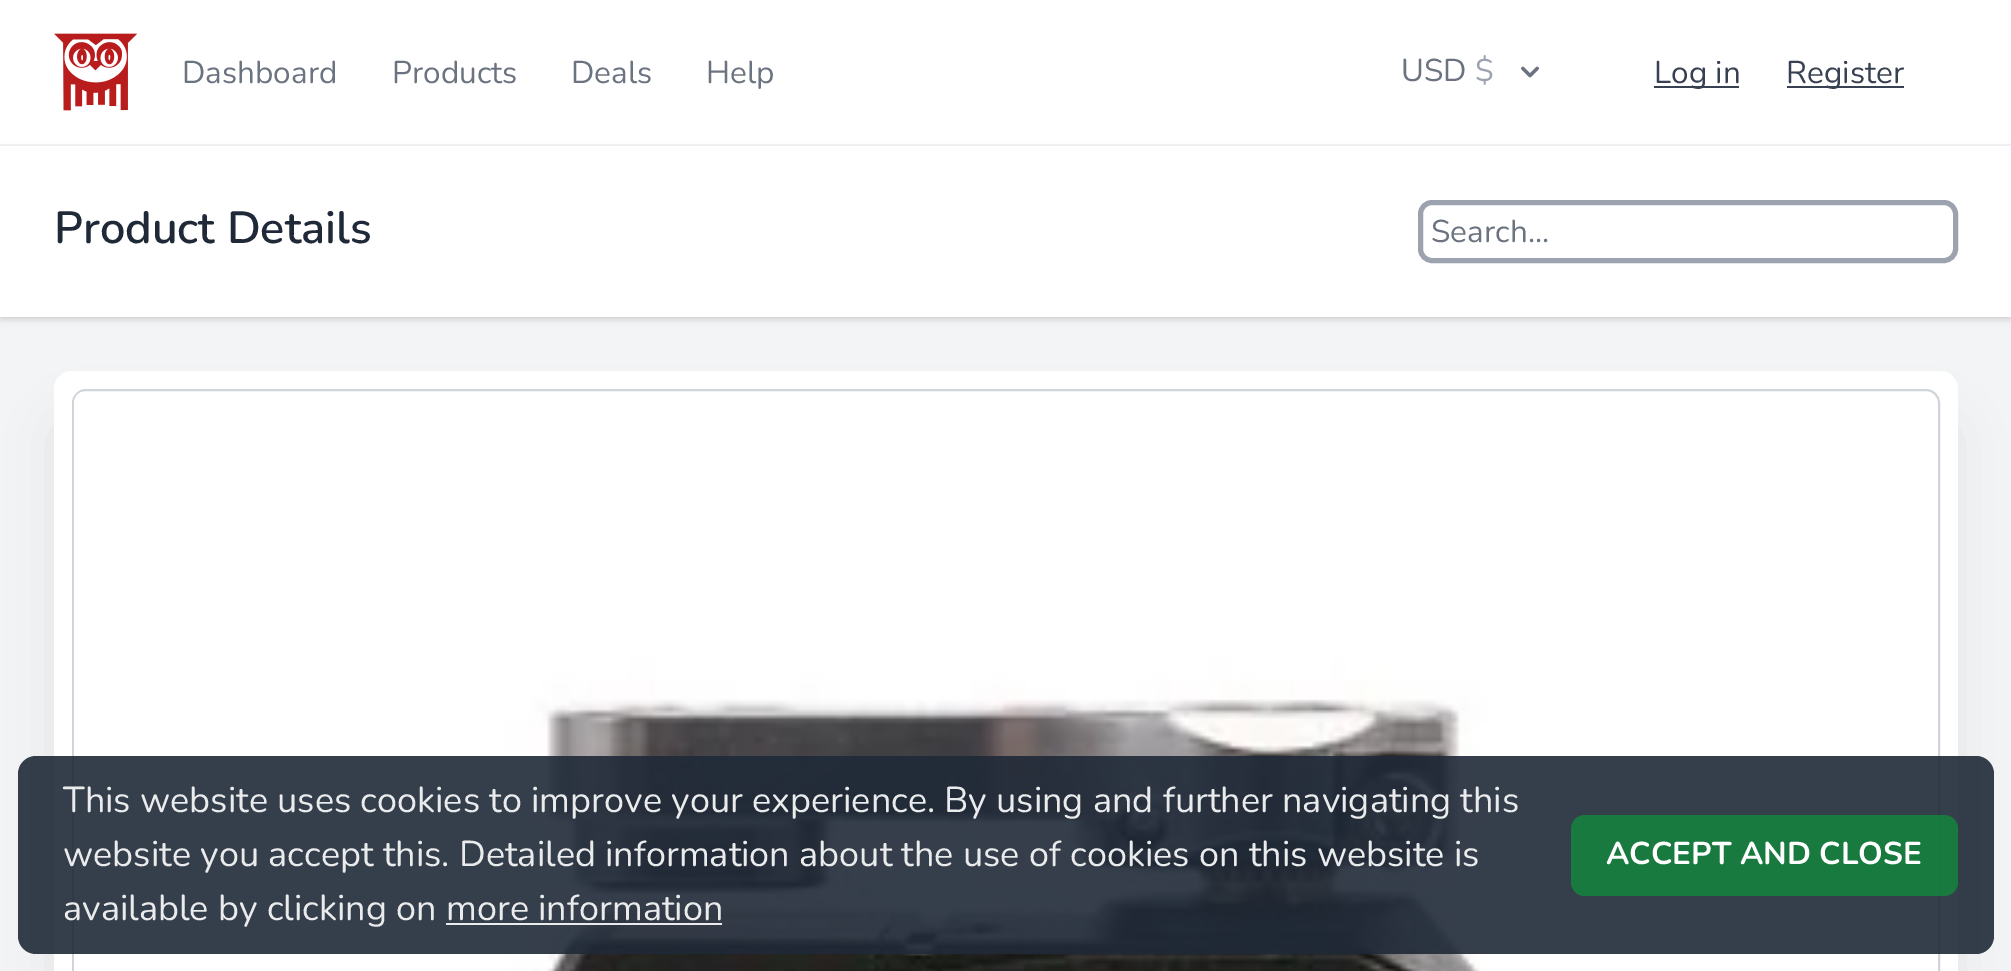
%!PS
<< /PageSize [2011 971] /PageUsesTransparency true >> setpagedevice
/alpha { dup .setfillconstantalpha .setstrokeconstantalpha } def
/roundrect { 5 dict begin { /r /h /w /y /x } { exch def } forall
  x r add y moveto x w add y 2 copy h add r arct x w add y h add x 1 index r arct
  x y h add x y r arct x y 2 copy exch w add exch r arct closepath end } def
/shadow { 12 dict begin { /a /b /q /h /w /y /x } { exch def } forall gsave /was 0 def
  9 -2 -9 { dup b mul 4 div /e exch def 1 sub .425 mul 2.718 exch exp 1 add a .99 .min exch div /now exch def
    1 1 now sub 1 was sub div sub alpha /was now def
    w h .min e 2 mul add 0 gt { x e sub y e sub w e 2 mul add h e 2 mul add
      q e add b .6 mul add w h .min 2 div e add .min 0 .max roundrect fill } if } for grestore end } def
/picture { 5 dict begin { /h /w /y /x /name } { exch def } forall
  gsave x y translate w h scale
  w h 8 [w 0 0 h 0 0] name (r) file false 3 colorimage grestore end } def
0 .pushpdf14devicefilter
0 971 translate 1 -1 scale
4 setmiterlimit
0.953 0.957 0.965 setrgbcolor
0 0 2011 971 rectfill
1 setgray
0 0 2011 144 rectfill
(img1.rgb) 54 33 83 78 picture
/Nunito-Regular [31.5 0 0 -31.5 0 0] selectfont
0.42 0.447 0.502 setrgbcolor
182 83 moveto (Dashboard) show
392 83 moveto (Products) show
571 83 moveto (Deals) show
706 83 moveto (Help) show
1401 81 moveto (USD) show
0.612 0.639 0.686 setrgbcolor
1475 81 moveto ($) show
(img2.rgb) 1521 66 18 12 picture
0.216 0.255 0.318 setrgbcolor
1654 86 85 2 rectfill
1654 83 moveto (Log in) show
1787 86 117 2 rectfill
1786 83 moveto (Register) show
0 setgray
2 151 2007 166 0 2 0.1 shadow
0 149 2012 171 0 3.5 0.1 shadow
1 setgray
0 146 2011 171 rectfill
/Nunito-SemiBold [45 0 0 -45 0 0] selectfont
0.122 0.161 0.216 setrgbcolor
54 243 moveto (Product Details) show
0.612 0.639 0.686 setrgbcolor
5 setlinewidth
1420.5 202.5 535 58 11.5 roundrect stroke
/Nunito-Regular [31.5 0 0 -31.5 0 0] selectfont
0.42 0.447 0.502 setrgbcolor
1431 242 moveto (Search...) show
0 setgray
65 428 1881 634 7 28 0.1 shadow
1 setgray
54 371 1904 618 18 roundrect fill
0.82 0.835 0.859 setrgbcolor
2 setlinewidth
73 390 1866 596 13 roundrect stroke
(img3.rgb) 74 392 1414 579 picture
0.9 alpha
0.122 0.161 0.216 setrgbcolor
18 756 1976 198 18 roundrect fill
/Nunito-Regular [36 0 0 -36 0 0] selectfont
1 alpha
0.918 0.922 0.925 setrgbcolor
63 812 moveto (This website uses cookies to improve your experience.) show
944 812 moveto (By using and further navigating this) show
63 866 moveto (website you accept this.) show
459 866 moveto (Detailed information about the use of cookies on this website is) show
63 920 moveto (available by clicking on more information) show
0.9 alpha
1 setgray
446 923 276 2 rectfill
0.082 0.502 0.239 setrgbcolor
1571 815 387 81 14 roundrect fill
/Nunito-Bold [31.5 0 0 -31.5 0 0] selectfont
1 alpha
1 setgray
1606 864 moveto (ACCEPT AND CLOSE) show
.poppdf14devicefilter showpage
